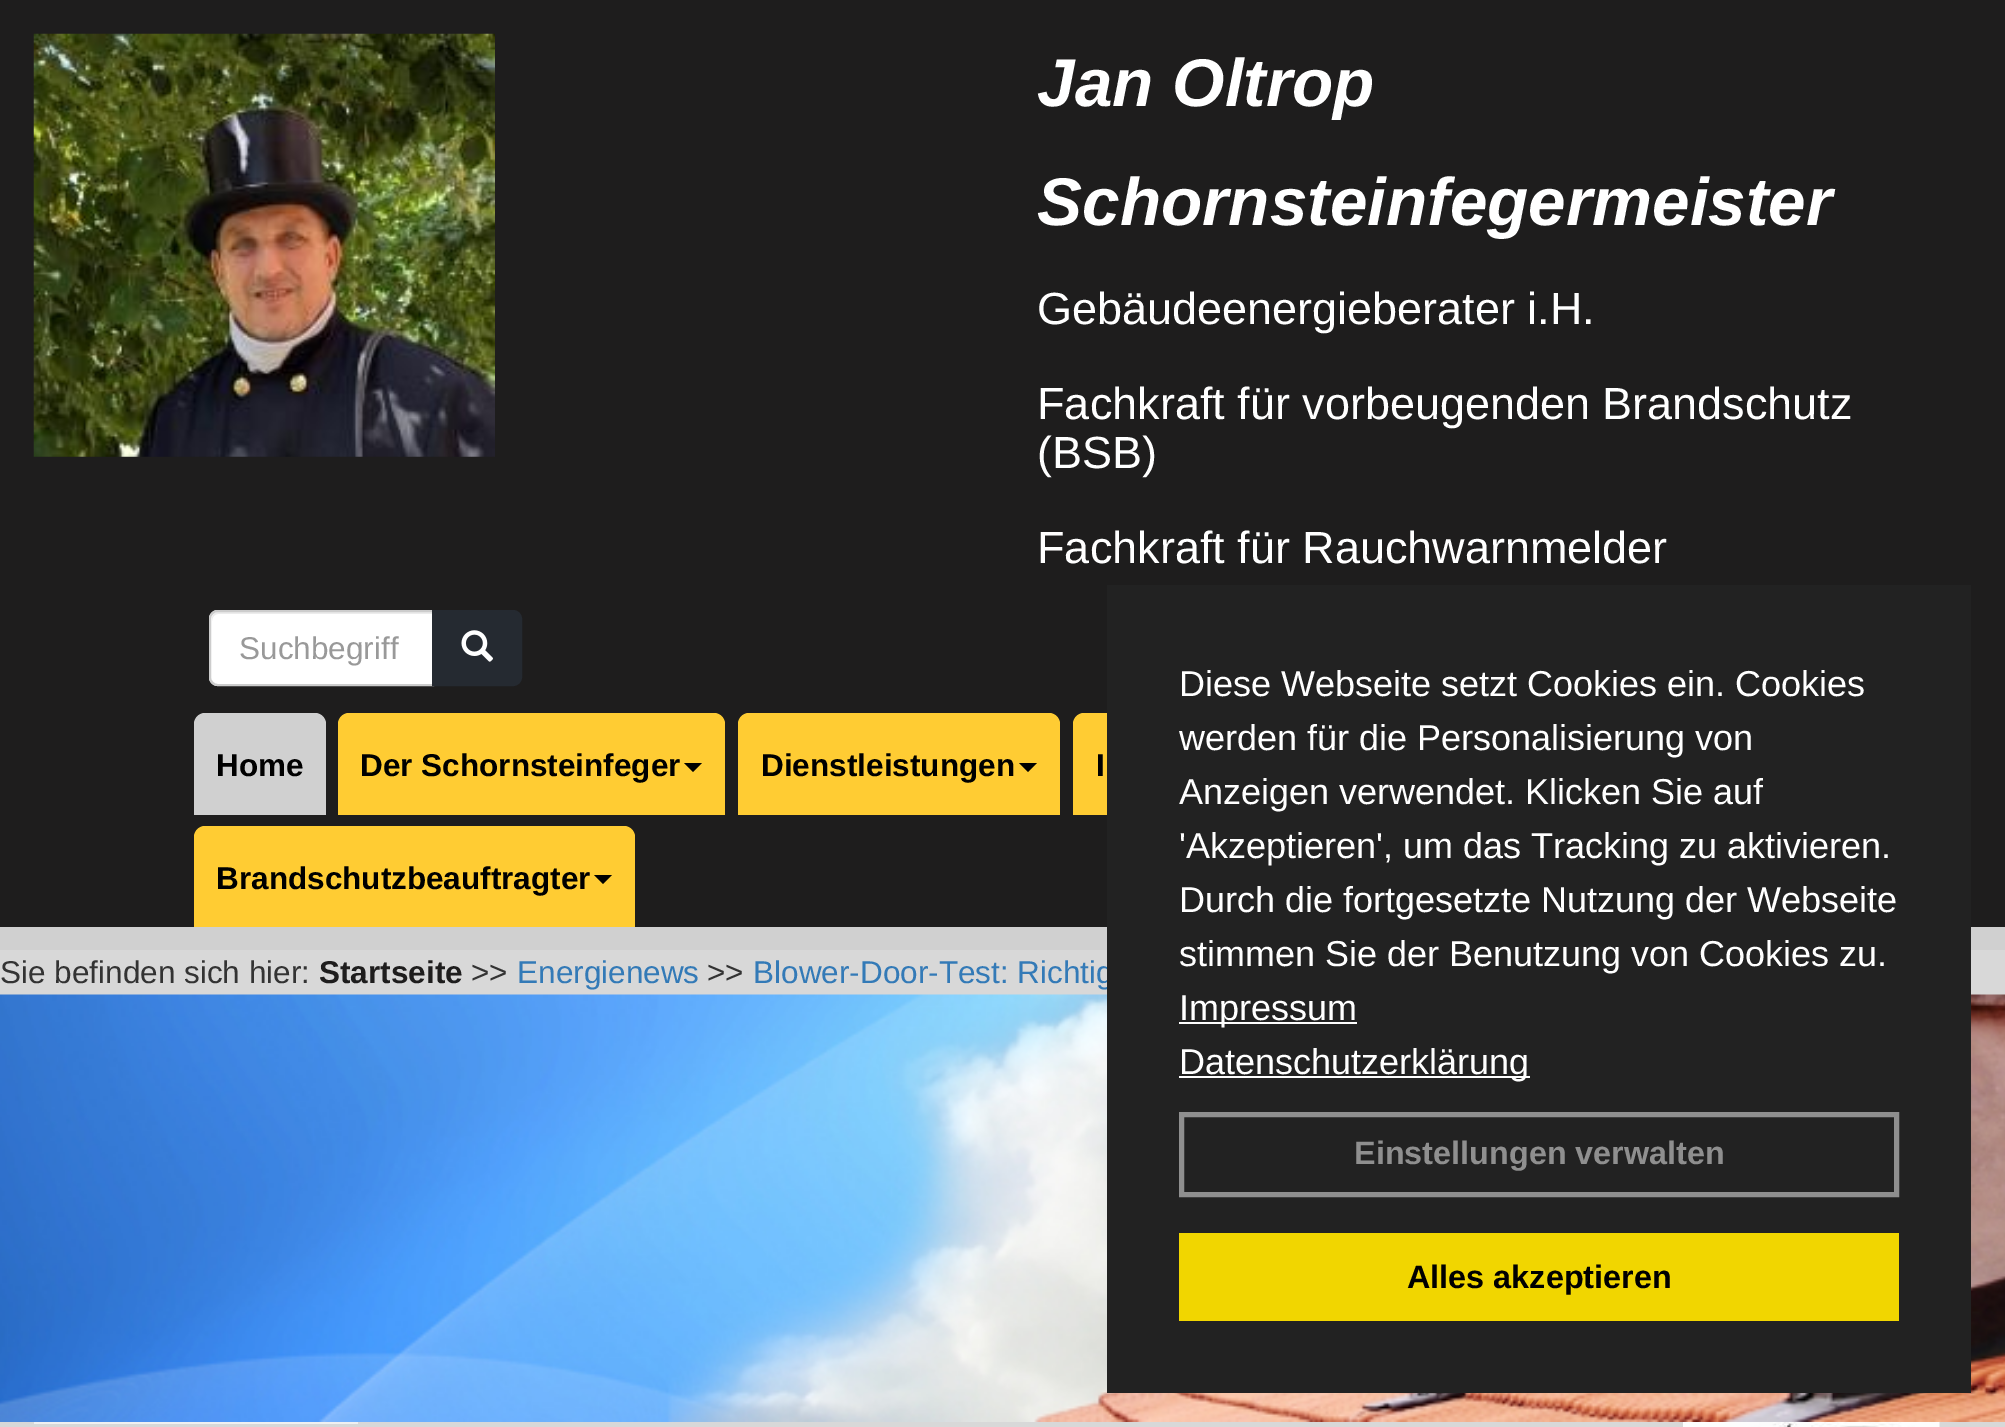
%!PS
<< /PageSize [2005 1427] >> setpagedevice
/picture { 5 dict begin { /h /w /y /x /name } { exch def } forall
  gsave x y translate w h scale
  w h 8 [w 0 0 h 0 0] name (r) file false 3 colorimage grestore end } def
0 1427 translate 1 -1 scale
4 setmiterlimit
0.847 setgray
0 0 2005 1427 rectfill
0.118 0.114 0.114 setrgbcolor
0 0 2005 927 rectfill
(img1.rgb) 33 33 462 424 picture
/LiberationSans-BoldItalic [67.5 0 0 -67.5 0 0] selectfont
1 setgray
1037 106 moveto (Jan Oltrop) show
1037 225 moveto (Schornsteinfegermeister) show
/LiberationSans-Regular [45 0 0 -45 0 0] selectfont
1037 324 moveto (Gebäudeenergieberater i.H.) show
1037 419 moveto (Fachkraft für vorbeugenden Brandschutz) show
1037 468 moveto (\(BSB\)) show
1037 563 moveto (Fachkraft für Rauchwarnmelder) show
0.816 setgray
0 927 2005 23 rectfill
1 setgray
newpath 218 610 moveto 434 610 lineto 434 686 lineto 218 686 lineto 213 686 209 682 209 677 curveto 209 619 lineto 209 614 213 610 218 610 curveto closepath fill
0.925 setgray
newpath 218 614 moveto 432 614 lineto 432 612 lineto 219 612 lineto 215 612 212 615 212 619 curveto 212 621 lineto 212 617 215 614 218 614 curveto closepath fill
0.8 setgray
2 setlinewidth
newpath 218 611 moveto 433 611 lineto 433 685 lineto 218 685 lineto 213.5 685 210 681.5 210 677 curveto 210 619 lineto 210 614.5 213.5 611 218 611 curveto closepath stroke
/LiberationSans-Regular [31.5 0 0 -31.5 0 0] selectfont
0.6 setgray
239 659 moveto (Suchbegriff) show
0.145 0.165 0.192 setrgbcolor
newpath 433 611 moveto 513 611 lineto 517.5 611 521 614.5 521 619 curveto 521 677 lineto 521 681.5 517.5 685 513 685 curveto 433 685 lineto closepath gsave fill grestore
stroke
(img2.rgb) 461 630 32 32 picture
0.816 setgray
newpath 205 713 moveto 315 713 lineto 321 713 326 718 326 724 curveto 326 815 lineto 194 815 lineto 194 724 lineto 194 718 199 713 205 713 curveto closepath fill
/LiberationSans-Bold [31.5 0 0 -31.5 0 0] selectfont
0 setgray
216 776 moveto (Home) show
1 0.8 0.2 setrgbcolor
newpath 349 713 moveto 714 713 lineto 720 713 725 718 725 724 curveto 725 815 lineto 338 815 lineto 338 724 lineto 338 718 343 713 349 713 curveto closepath fill
0 setgray
360 776 moveto (Der Schornsteinfeger) show
newpath 684 763 moveto 702 763 lineto 693 772 lineto closepath fill
1 0.8 0.2 setrgbcolor
newpath 749 713 moveto 1049 713 lineto 1055 713 1060 718 1060 724 curveto 1060 815 lineto 738 815 lineto 738 724 lineto 738 718 743 713 749 713 curveto closepath fill
0 setgray
761 776 moveto (Dienstleistungen) show
newpath 1019 763 moveto 1037 763 lineto 1028 772 lineto closepath fill
1 0.8 0.2 setrgbcolor
newpath 1084 713 moveto 1521 713 lineto 1527 713 1532 718 1532 724 curveto 1532 815 lineto 1073 815 lineto 1073 724 lineto 1073 718 1078 713 1084 713 curveto closepath fill
0 setgray
1096 776 moveto (I) show
1 0.8 0.2 setrgbcolor
newpath 205 826 moveto 624 826 lineto 630 826 635 831 635 837 curveto 635 927 lineto 194 927 lineto 194 837 lineto 194 831 199 826 205 826 curveto closepath fill
0 setgray
216 889 moveto (Brandschutzbeauftragter) show
newpath 594 875 moveto 612 875 lineto 603 884 lineto closepath fill
/LiberationSans-Regular [31.5 0 0 -31.5 0 0] selectfont
0.2 setgray
0 983 moveto (Sie befinden sich hier:) show
/LiberationSans-Bold [31.5 0 0 -31.5 0 0] selectfont
0.118 0.114 0.114 setrgbcolor
319 983 moveto (Startseite) show
/LiberationSans-Regular [31.5 0 0 -31.5 0 0] selectfont
0.2 setgray
471 983 moveto (>>) show
0.2 0.478 0.718 setrgbcolor
517 983 moveto (Energienews) show
0.2 setgray
707 983 moveto (>>) show
0.2 0.478 0.718 setrgbcolor
753 983 moveto (Blower-Door-Test: Richtig) show
(img3.rgb) 0 994 2005 428 picture
0.941 setgray
34 1422 324 2 rectfill
(img4.rgb) 1683 1422 257 5 picture
0.133 setgray
1107 585 864 808 rectfill
/LiberationSans-Regular [36 0 0 -36 0 0] selectfont
1 setgray
1179 696 moveto (Diese Webseite setzt Cookies ein. Cookies) show
1179 750 moveto (werden für die Personalisierung von) show
1179 804 moveto (Anzeigen verwendet. Klicken Sie auf) show
1179 858 moveto ('Akzeptieren', um das Tracking zu aktivieren.) show
1179 912 moveto (Durch die fortgesetzte Nutzung der Webseite) show
1179 966 moveto (stimmen Sie der Benutzung von Cookies zu.) show
1179 1022 178 2 rectfill
1179 1020 moveto (Impressum) show
1179 1076 351 2 rectfill
1179 1074 moveto (Datenschutzerklärung) show
0.561 setgray
5 setlinewidth
1181.5 1114.5 715 80 rectstroke
/LiberationSans-Bold [32.4 0 0 -32.4 0 0] selectfont
1354 1164 moveto (Einstellungen verwalten) show
0.945 0.839 0 setrgbcolor
1179 1233 720 88 rectfill
0 setgray
1407 1288 moveto (Alles akzeptieren) show
showpage
